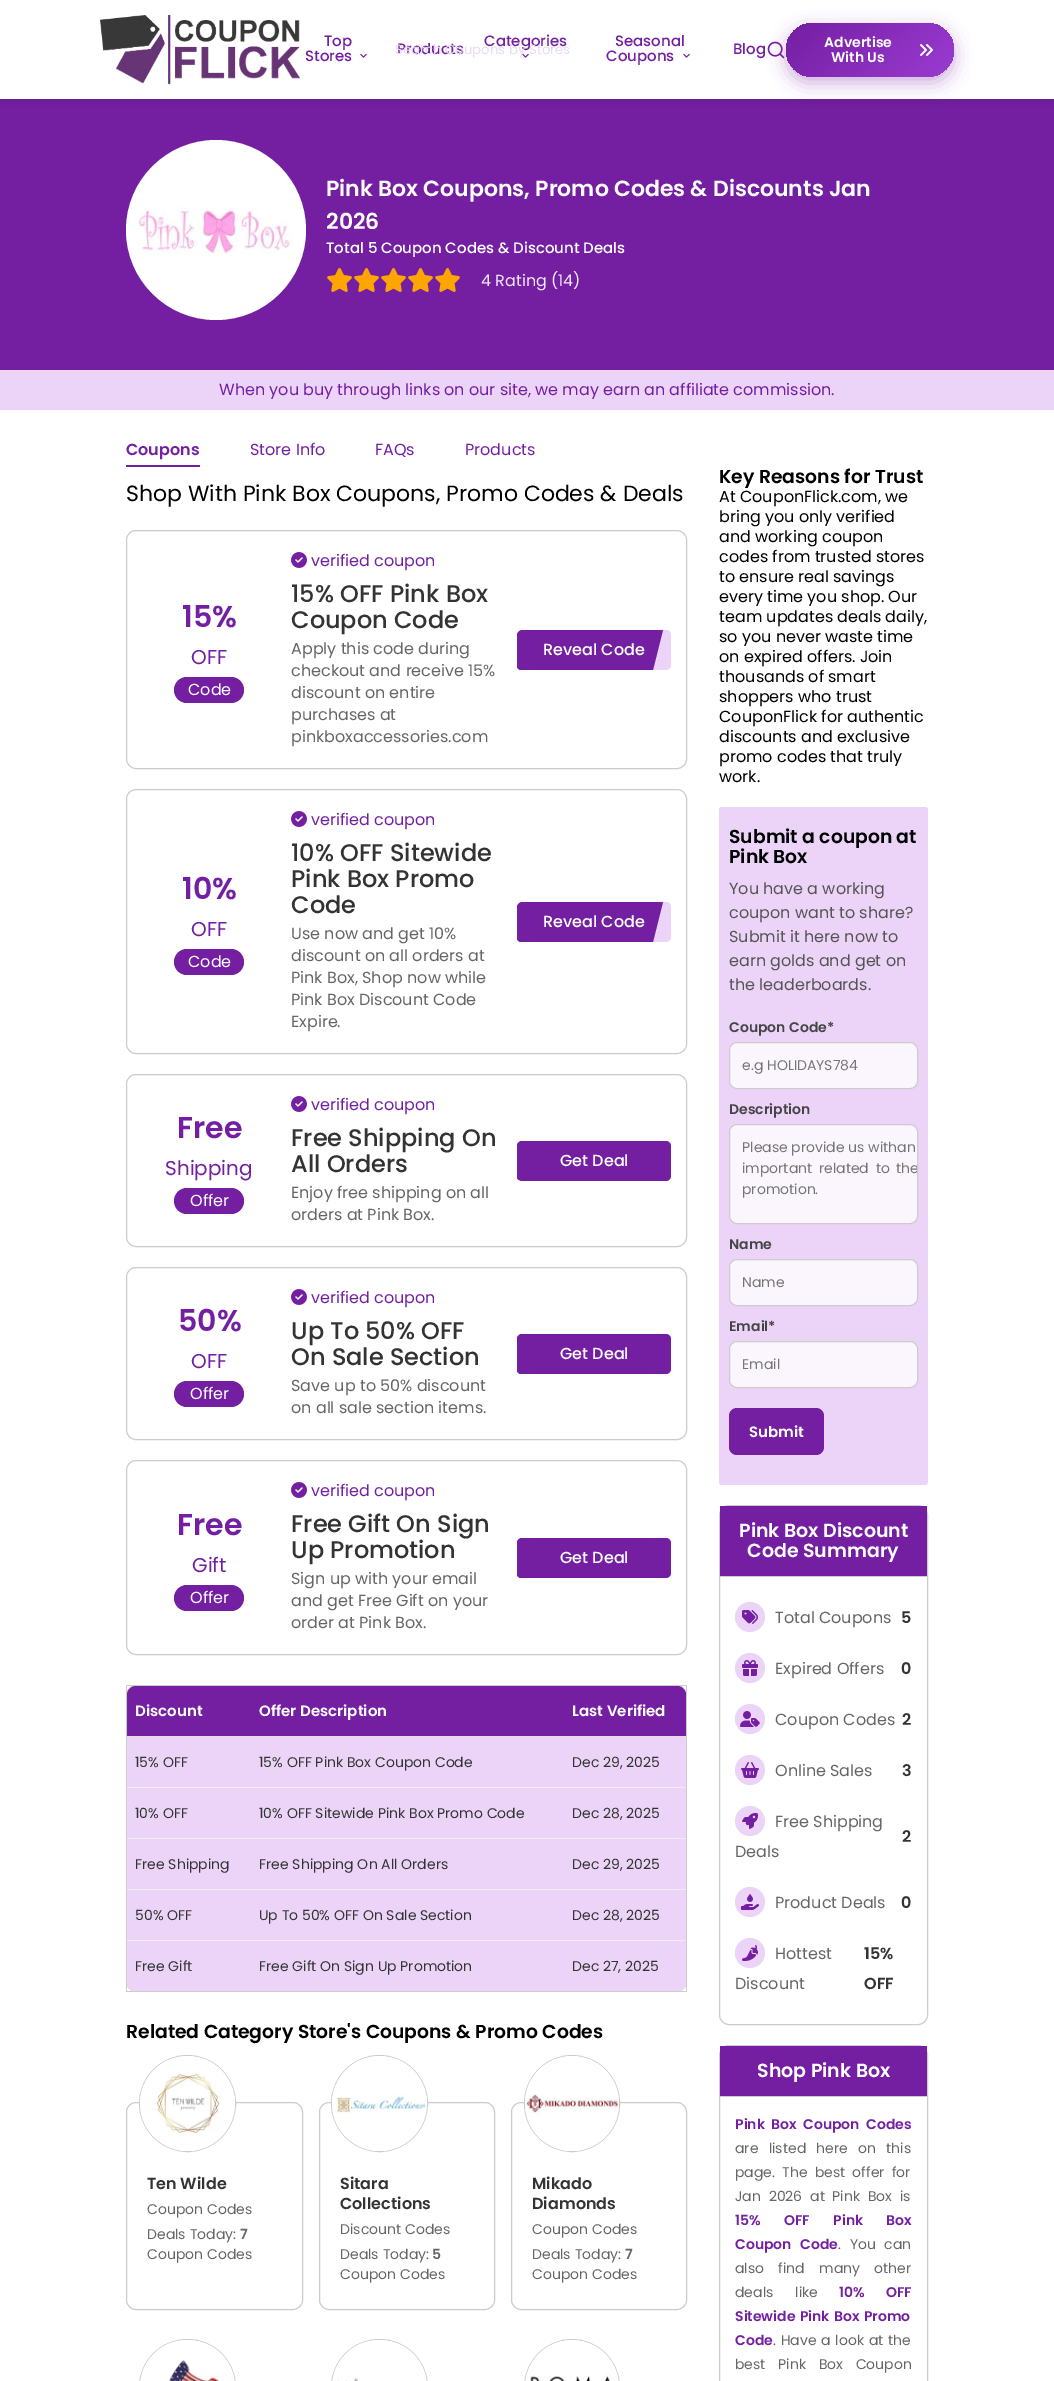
%!PS
<< /PageSize [1054 2381] /PageUsesTransparency true >> setpagedevice
/alpha { dup .setfillconstantalpha .setstrokeconstantalpha } def
/roundrect { 5 dict begin { /r /h /w /y /x } { exch def } forall
  x r add y moveto x w add y 2 copy h add r arct x w add y h add x 1 index r arct
  x y h add x y r arct x y 2 copy exch w add exch r arct closepath end } def
/shadow { 12 dict begin { /a /b /q /h /w /y /x } { exch def } forall gsave /was 0 def
  9 -2 -9 { dup b mul 4 div /e exch def 1 sub .425 mul 2.718 exch exp 1 add a .99 .min exch div /now exch def
    1 1 now sub 1 was sub div sub alpha /was now def
    w h .min e 2 mul add 0 gt { x e sub y e sub w e 2 mul add h e 2 mul add
      q e add b .6 mul add w h .min 2 div e add .min 0 .max roundrect fill } if } for grestore end } def
/picture { 5 dict begin { /h /w /y /x /name } { exch def } forall
  gsave x y translate w h scale
  w h 8 [w 0 0 h 0 0] name (r) file false 3 colorimage grestore end } def
0 .pushpdf14devicefilter
0 2381 translate 1 -1 scale
4 setmiterlimit
1 setgray
0 0 1054 2381 rectfill
0.455 0.122 0.635 setrgbcolor
0 99 1054 271 rectfill
0 setgray
0 4 1054 99 0 5 0.1 shadow
1 setgray
0 0 1054 99 rectfill
(img1.rgb) 100 15 200 70 picture
/Poppins-Medium [15 0 0 -15 0 0] selectfont
0.455 0.122 0.635 setrgbcolor
324 46 moveto (Top) show
305 61 moveto (Stores) show
(img2.rgb) 360 53 7 5 picture
397 54 moveto (Products) show
484 46 moveto (Categories) show
(img2.rgb) 522 53 7 5 picture
615 46 moveto (Seasonal) show
606 61 moveto (Coupons) show
(img2.rgb) 683 53 7 5 picture
733 54 moveto (Blog) show
(img3.rgb) 767 41 18 18 picture
786 29 168 54 27 9 0.35 shadow
gsave 786 23 168 54 27 roundrect clip newpath
<< /ShadingType 2 /ColorSpace /DeviceRGB /Coords [815 -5.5 926 106] /Extend [true true] /Function << /FunctionType 2 /Domain [0 1] /C0 [0.455 0.122 0.635] /C1 [0.608 0.231 0.824] /N 1 >> >> shfill grestore
/Poppins-SemiBold [14 0 0 -14 0 0] selectfont
1 setgray
824 47 moveto (Advertise) show
831 62 moveto (With Us) show
(img4.rgb) 920 44 13 12 picture
/Poppins-Regular [13.3 0 0 -13.3 0 0] selectfont
0.91 0.855 0.941 setrgbcolor
395 54 moveto (Search Coupons by Stores) show
1 setgray
newpath 216 230 90 0 360 arc closepath fill
(img5.rgb) 138 206 156 48 picture
/Poppins-SemiBold [22 0 0 -22 0 0] selectfont
326 196 moveto (Pink Box Coupons, Promo Codes & Discounts Jan) show
326 229 moveto (2026) show
/Poppins-Medium [15 0 0 -15 0 0] selectfont
326 253 moveto (Total 5 Coupon Codes & Discount Deals) show
(img6.rgb) 327 268 25 24 picture
(img6.rgb) 354 268 25 24 picture
(img6.rgb) 381 268 25 24 picture
(img6.rgb) 408 268 25 24 picture
(img6.rgb) 435 268 25 24 picture
/Poppins-Regular [16 0 0 -16 0 0] selectfont
0.945 0.914 0.965 setrgbcolor
481 286 moveto (4 Rating \(14\)) show
0.922 0.831 0.969 setrgbcolor
0 370 1054 40 rectfill
0.455 0.122 0.635 setrgbcolor
219 395 moveto (When you buy through links on our site, we may earn an affiliate commission.) show
126 465 74 2 rectfill
/Poppins-SemiBold [16 0 0 -16 0 0] selectfont
126 455 moveto (Coupons) show
/Poppins-Regular [16 0 0 -16 0 0] selectfont
250 455 moveto (Store Info) show
375 455 moveto (FAQs) show
465 455 moveto (Products) show
/Poppins-Regular [22 0 0 -22 0 0] selectfont
0 setgray
126 501 moveto (Shop With Pink Box Coupons, Promo Codes & Deals) show
0.8 setgray
126.5 530.5 560 238 9.5 roundrect stroke
/Poppins-SemiBold [30 0 0 -30 0 0] selectfont
0.455 0.122 0.635 setrgbcolor
182 627 moveto (15%) show
/Poppins-Regular [20 0 0 -20 0 0] selectfont
191 664 moveto (OFF) show
174 677 70 26 13 roundrect fill
/Poppins-Regular [16 0 0 -16 0 0] selectfont
1 setgray
188 695 moveto (Code) show
(img7.rgb) 291 552 16 16 picture
0.455 0.122 0.635 setrgbcolor
311 566 moveto (verified coupon) show
/Poppins-Medium [24 0 0 -24 0 0] selectfont
0.2 setgray
291 602 moveto (15% OFF Pink Box) show
291 628 moveto (Coupon Code) show
/Poppins-Regular [16 0 0 -16 0 0] selectfont
0.4 setgray
291 654 moveto (Apply this code during) show
291 676 moveto (checkout and receive 15%) show
291 698 moveto (discount on entire) show
291 720 moveto (purchases at) show
291 742 moveto (pinkboxaccessories.com) show
0.922 0.831 0.969 setrgbcolor
517 630 154 40 5 roundrect fill
0.455 0.122 0.635 setrgbcolor
newpath 522 630 moveto 663 630 lineto 653 670 lineto 520 670 lineto 518 669 517 668 517 666 curveto 517 634 lineto 518 632 520 630 522 630 curveto closepath fill
/Poppins-Medium [16 0 0 -16 0 0] selectfont
1 setgray
543 655 moveto (Reveal Code) show
0.8 setgray
126.5 789.5 560 264 9.5 roundrect stroke
/Poppins-SemiBold [30 0 0 -30 0 0] selectfont
0.455 0.122 0.635 setrgbcolor
182 899 moveto (10%) show
/Poppins-Regular [20 0 0 -20 0 0] selectfont
191 936 moveto (OFF) show
174 949 70 26 13 roundrect fill
/Poppins-Regular [16 0 0 -16 0 0] selectfont
1 setgray
188 967 moveto (Code) show
(img7.rgb) 291 811 16 16 picture
0.455 0.122 0.635 setrgbcolor
311 825 moveto (verified coupon) show
/Poppins-Medium [24 0 0 -24 0 0] selectfont
0.2 setgray
291 861 moveto (10% OFF Sitewide) show
291 887 moveto (Pink Box Promo) show
291 913 moveto (Code) show
/Poppins-Regular [16 0 0 -16 0 0] selectfont
0.4 setgray
291 939 moveto (Use now and get 10%) show
291 961 moveto (discount on all orders at) show
291 983 moveto (Pink Box, Shop now while) show
291 1005 moveto (Pink Box Discount Code) show
291 1027 moveto (Expire.) show
0.922 0.831 0.969 setrgbcolor
517 902 154 40 5 roundrect fill
0.455 0.122 0.635 setrgbcolor
newpath 522 902 moveto 663 902 lineto 653 942 lineto 520 942 lineto 518 941 517 940 517 938 curveto 517 906 lineto 518 904 520 902 522 902 curveto closepath fill
/Poppins-Medium [16 0 0 -16 0 0] selectfont
1 setgray
543 927 moveto (Reveal Code) show
0.8 setgray
126.5 1074.5 560 172 9.5 roundrect stroke
/Poppins-SemiBold [30 0 0 -30 0 0] selectfont
0.455 0.122 0.635 setrgbcolor
177 1138 moveto (Free) show
/Poppins-Regular [20 0 0 -20 0 0] selectfont
165 1175 moveto (Shipping) show
174 1188 70 26 13 roundrect fill
/Poppins-Regular [16 0 0 -16 0 0] selectfont
1 setgray
190 1206 moveto (Offer) show
(img7.rgb) 291 1096 16 16 picture
0.455 0.122 0.635 setrgbcolor
311 1110 moveto (verified coupon) show
/Poppins-Medium [24 0 0 -24 0 0] selectfont
0.2 setgray
291 1146 moveto (Free Shipping On) show
291 1172 moveto (All Orders) show
/Poppins-Regular [16 0 0 -16 0 0] selectfont
0.4 setgray
291 1198 moveto (Enjoy free shipping on all) show
291 1220 moveto (orders at Pink Box.) show
0.455 0.122 0.635 setrgbcolor
517 1141 154 40 5 roundrect fill
newpath 522 1141 moveto 663 1141 lineto 653 1180 lineto 520 1180 lineto 518 1180 517 1179 517 1177 curveto 517 1145 lineto 518 1143 520 1141 522 1141 curveto closepath fill
/Poppins-Medium [16 0 0 -16 0 0] selectfont
1 setgray
560 1166 moveto (Get Deal) show
0.8 setgray
126.5 1267.5 560 172 9.5 roundrect stroke
/Poppins-SemiBold [30 0 0 -30 0 0] selectfont
0.455 0.122 0.635 setrgbcolor
178 1331 moveto (50%) show
/Poppins-Regular [20 0 0 -20 0 0] selectfont
191 1368 moveto (OFF) show
174 1381 70 26 13 roundrect fill
/Poppins-Regular [16 0 0 -16 0 0] selectfont
1 setgray
190 1399 moveto (Offer) show
(img7.rgb) 291 1289 16 16 picture
0.455 0.122 0.635 setrgbcolor
311 1303 moveto (verified coupon) show
/Poppins-Medium [24 0 0 -24 0 0] selectfont
0.2 setgray
291 1339 moveto (Up To 50% OFF) show
291 1365 moveto (On Sale Section) show
/Poppins-Regular [16 0 0 -16 0 0] selectfont
0.4 setgray
291 1391 moveto (Save up to 50% discount) show
291 1413 moveto (on all sale section items.) show
0.455 0.122 0.635 setrgbcolor
517 1334 154 40 5 roundrect fill
newpath 522 1334 moveto 663 1334 lineto 653 1374 lineto 520 1374 lineto 518 1373 517 1372 517 1370 curveto 517 1338 lineto 518 1336 520 1334 522 1334 curveto closepath fill
/Poppins-Medium [16 0 0 -16 0 0] selectfont
1 setgray
560 1359 moveto (Get Deal) show
0.8 setgray
126.5 1460.5 560 194 9.5 roundrect stroke
/Poppins-SemiBold [30 0 0 -30 0 0] selectfont
0.455 0.122 0.635 setrgbcolor
177 1535 moveto (Free) show
/Poppins-Regular [20 0 0 -20 0 0] selectfont
192 1572 moveto (Gift) show
174 1585 70 26 13 roundrect fill
/Poppins-Regular [16 0 0 -16 0 0] selectfont
1 setgray
190 1603 moveto (Offer) show
(img7.rgb) 291 1482 16 16 picture
0.455 0.122 0.635 setrgbcolor
311 1496 moveto (verified coupon) show
/Poppins-Medium [24 0 0 -24 0 0] selectfont
0.2 setgray
291 1532 moveto (Free Gift On Sign) show
291 1558 moveto (Up Promotion) show
/Poppins-Regular [16 0 0 -16 0 0] selectfont
0.4 setgray
291 1584 moveto (Sign up with your email) show
291 1606 moveto (and get Free Gift on your) show
291 1628 moveto (order at Pink Box.) show
0.455 0.122 0.635 setrgbcolor
517 1538 154 40 5 roundrect fill
newpath 522 1538 moveto 663 1538 lineto 653 1578 lineto 520 1578 lineto 518 1577 517 1576 517 1574 curveto 517 1542 lineto 518 1540 520 1538 522 1538 curveto closepath fill
/Poppins-Medium [16 0 0 -16 0 0] selectfont
1 setgray
560 1563 moveto (Get Deal) show
0.922 0.831 0.969 setrgbcolor
126 1685 561 307 10 roundrect fill
0.961 0.918 0.984 setrgbcolor
127 1787 559 1 rectfill
0.98 0.961 0.992 setrgbcolor
250 1787 1 1 rectfill
0.961 0.918 0.984 setrgbcolor
127 1838 559 1 rectfill
0.98 0.961 0.992 setrgbcolor
250 1838 1 1 rectfill
0.961 0.918 0.984 setrgbcolor
127 1889 559 1 rectfill
0.98 0.961 0.992 setrgbcolor
250 1889 1 1 rectfill
0.961 0.918 0.984 setrgbcolor
127 1940 559 1 rectfill
0.98 0.961 0.992 setrgbcolor
250 1940 1 1 rectfill
0.8 setgray
126 1685 561 1 rectfill
686 1685 1 307 rectfill
126 1991 561 1 rectfill
126 1685 1 307 rectfill
0.455 0.122 0.635 setrgbcolor
newpath 136 1686 moveto 251 1686 lineto 251 1737 lineto 127 1737 lineto 127 1695 lineto 127 1690 131 1686 136 1686 curveto closepath fill
/Poppins-SemiBold [15 0 0 -15 0 0] selectfont
1 setgray
135 1716 moveto (Discount) show
0.455 0.122 0.635 setrgbcolor
251 1686 313 50 rectfill
1 setgray
259 1716 moveto (Offer Description) show
0.455 0.122 0.635 setrgbcolor
newpath 564 1686 moveto 677 1686 lineto 682 1686 686 1690 686 1695 curveto 686 1737 lineto 564 1737 lineto closepath fill
0.867 setgray
127 1736 559 1 rectfill
1 setgray
572 1716 moveto (Last Verified) show
/Poppins-Regular [14 0 0 -14 0 0] selectfont
0.2 setgray
135 1767 moveto (15% OFF) show
259 1767 moveto (15% OFF Pink Box Coupon Code) show
0.98 0.961 0.992 setrgbcolor
564 1787 1 1 rectfill
0.2 setgray
572 1767 moveto (Dec 29, 2025) show
135 1818 moveto (10% OFF) show
259 1818 moveto (10% OFF Sitewide Pink Box Promo Code) show
0.98 0.961 0.992 setrgbcolor
564 1838 1 1 rectfill
0.2 setgray
572 1818 moveto (Dec 28, 2025) show
135 1869 moveto (Free Shipping) show
259 1869 moveto (Free Shipping On All Orders) show
0.98 0.961 0.992 setrgbcolor
564 1889 1 1 rectfill
0.2 setgray
572 1869 moveto (Dec 29, 2025) show
135 1920 moveto (50% OFF) show
259 1920 moveto (Up To 50% OFF On Sale Section) show
0.98 0.961 0.992 setrgbcolor
564 1940 1 1 rectfill
0.2 setgray
572 1920 moveto (Dec 28, 2025) show
135 1971 moveto (Free Gift) show
259 1971 moveto (Free Gift On Sign Up Promotion) show
572 1971 moveto (Dec 27, 2025) show
/Poppins-SemiBold [18.75 0 0 -18.75 0 0] selectfont
0 setgray
126 2038 moveto (Related Category Store's Coupons & Promo Codes) show
0.8 setgray
126.5 2102.5 176 207 9.5 roundrect stroke
newpath 187.5 2103.5 48 0 360 arc closepath stroke
(img8.rgb) 140 2056 95 95 picture
/Poppins-SemiBold [16 0 0 -16 0 0] selectfont
0.2 setgray
147 2189 moveto (Ten Wilde) show
/Poppins-Regular [14 0 0 -14 0 0] selectfont
0.4 setgray
147 2214 moveto (Coupon Codes) show
147 2239 moveto (Deals Today:) show
/Poppins-SemiBold [14 0 0 -14 0 0] selectfont
240 2239 moveto (7) show
/Poppins-Regular [14 0 0 -14 0 0] selectfont
147 2259 moveto (Coupon Codes) show
0.8 setgray
319.5 2102.5 175 207 9.5 roundrect stroke
newpath 379.5 2103.5 48 0 360 arc closepath stroke
(img9.rgb) 332 2056 95 95 picture
/Poppins-SemiBold [16 0 0 -16 0 0] selectfont
0.2 setgray
340 2189 moveto (Sitara) show
340 2209 moveto (Collections) show
/Poppins-Regular [14 0 0 -14 0 0] selectfont
0.4 setgray
340 2234 moveto (Discount Codes) show
340 2259 moveto (Deals Today:) show
/Poppins-SemiBold [14 0 0 -14 0 0] selectfont
432 2259 moveto (5) show
/Poppins-Regular [14 0 0 -14 0 0] selectfont
340 2279 moveto (Coupon Codes) show
0.8 setgray
511.5 2102.5 175 207 9.5 roundrect stroke
524.5 2055.5 95 96 47.5 roundrect stroke
(img10.rgb) 525 2056 94 95 picture
/Poppins-SemiBold [16 0 0 -16 0 0] selectfont
0.2 setgray
532 2189 moveto (Mikado) show
532 2209 moveto (Diamonds) show
/Poppins-Regular [14 0 0 -14 0 0] selectfont
0.4 setgray
532 2234 moveto (Coupon Codes) show
532 2259 moveto (Deals Today:) show
/Poppins-SemiBold [14 0 0 -14 0 0] selectfont
625 2259 moveto (7) show
/Poppins-Regular [14 0 0 -14 0 0] selectfont
532 2279 moveto (Coupon Codes) show
0.8 setgray
139.5 2339.5 96 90 47.5 roundrect stroke
(img11.rgb) 140 2340 95 41 picture
331.5 2339.5 96 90 47.5 roundrect stroke
(img12.rgb) 332 2340 95 41 picture
524.5 2339.5 95 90 47.5 roundrect stroke
(img13.rgb) 525 2340 94 41 picture
/Poppins-SemiBold [18.75 0 0 -18.75 0 0] selectfont
0 setgray
719 483 moveto (Key Reasons for Trust) show
/Poppins-Regular [16 0 0 -16 0 0] selectfont
719 502 moveto (At CouponFlick.com, we) show
719 522 moveto (bring you only verified) show
719 542 moveto (and working coupon) show
719 562 moveto (codes from trusted stores) show
719 582 moveto (to ensure real savings) show
719 602 moveto (every time you shop. Our) show
719 622 moveto (team updates deals daily,) show
719 642 moveto (so you never waste time) show
719 662 moveto (on expired offers. Join) show
719 682 moveto (thousands of smart) show
719 702 moveto (shoppers who trust) show
719 722 moveto (CouponFlick for authentic) show
719 742 moveto (discounts and exclusive) show
719 762 moveto (promo codes that truly) show
719 782 moveto (work.) show
0.922 0.831 0.969 setrgbcolor
719 807 209 678 3 roundrect fill
/Poppins-SemiBold [18.75 0 0 -18.75 0 0] selectfont
0 setgray
729 843 moveto (Submit a coupon at) show
729 863 moveto (Pink Box) show
/Poppins-Regular [16 0 0 -16 0 0] selectfont
0.333 setgray
729 894 moveto (You have a working) show
729 918 moveto (coupon want to share?) show
729 942 moveto (Submit it here now to) show
729 966 moveto (earn golds and get on) show
729 990 moveto (the leaderboards.) show
/Poppins-SemiBold [14 0 0 -14 0 0] selectfont
0.267 setgray
729 1032 moveto (Coupon Code*) show
0.984 0.965 0.992 setrgbcolor
729.5 1042.5 188 46 7.5 roundrect gsave fill grestore
0.8 setgray
stroke
/Poppins-Regular [14 0 0 -14 0 0] selectfont
0.459 setgray
742 1070 moveto (e.g HOLIDAYS784) show
/Poppins-SemiBold [14 0 0 -14 0 0] selectfont
0.267 setgray
729 1114 moveto (Description) show
0.984 0.965 0.992 setrgbcolor
729.5 1124.5 188 99 7.5 roundrect gsave fill grestore
0.8 setgray
stroke
/Poppins-Regular [14 0 0 -14 0 0] selectfont
0.459 setgray
742 1152 moveto (Please provide us withan) show
742 1173 moveto 3 0 32 (important related to) widthshow
gsave
730 1125 187 98 7 roundrect clip newpath
896 1173 moveto (the) show
grestore
742 1194 moveto (promotion.) show
/Poppins-SemiBold [14 0 0 -14 0 0] selectfont
0.267 setgray
729 1249 moveto (Name) show
0.984 0.965 0.992 setrgbcolor
729.5 1259.5 188 46 7.5 roundrect gsave fill grestore
0.8 setgray
stroke
/Poppins-Regular [14 0 0 -14 0 0] selectfont
0.459 setgray
742 1287 moveto (Name) show
/Poppins-SemiBold [14 0 0 -14 0 0] selectfont
0.267 setgray
729 1331 moveto (Email*) show
0.984 0.965 0.992 setrgbcolor
729.5 1341.5 188 46 7.5 roundrect gsave fill grestore
0.8 setgray
stroke
/Poppins-Regular [14 0 0 -14 0 0] selectfont
0.459 setgray
742 1369 moveto (Email) show
0.455 0.122 0.635 setrgbcolor
729 1408 95 47 8 roundrect fill
/Poppins-SemiBold [15 0 0 -15 0 0] selectfont
1 setgray
749 1437 moveto (Submit) show
0.8 setgray
719.5 1505.5 208 519 9.5 roundrect stroke
0.455 0.122 0.635 setrgbcolor
720 1506 207 70 rectfill
0.8 setgray
720 1576 207 1 rectfill
/Poppins-SemiBold [19 0 0 -19 0 0] selectfont
1 setgray
739 1537 moveto (Pink Box Discount) show
747 1557 moveto (Code Summary) show
0.922 0.831 0.969 setrgbcolor
newpath 750 1617 15 0 360 arc closepath fill
(img14.rgb) 742 1610 16 14 picture
/Poppins-Regular [16 0 0 -16 0 0] selectfont
0.4 setgray
775 1623 moveto (Total Coupons) show
/Poppins-SemiBold [16 0 0 -16 0 0] selectfont
0.2 setgray
901 1623 moveto (5) show
0.922 0.831 0.969 setrgbcolor
newpath 750 1668 15 0 360 arc closepath fill
(img15.rgb) 742 1660 16 16 picture
/Poppins-Regular [16 0 0 -16 0 0] selectfont
0.4 setgray
775 1674 moveto (Expired Offers) show
/Poppins-SemiBold [16 0 0 -16 0 0] selectfont
0.2 setgray
901 1674 moveto (0) show
0.922 0.831 0.969 setrgbcolor
newpath 750 1719 15 0 360 arc closepath fill
(img16.rgb) 740 1711 20 16 picture
/Poppins-Regular [16 0 0 -16 0 0] selectfont
0.4 setgray
775 1725 moveto (Coupon Codes) show
/Poppins-SemiBold [16 0 0 -16 0 0] selectfont
0.2 setgray
902 1725 moveto (2) show
0.922 0.831 0.969 setrgbcolor
newpath 750 1770 15 0 360 arc closepath fill
(img17.rgb) 741 1762 18 16 picture
/Poppins-Regular [16 0 0 -16 0 0] selectfont
0.4 setgray
775 1776 moveto (Online Sales) show
/Poppins-SemiBold [16 0 0 -16 0 0] selectfont
0.2 setgray
902 1776 moveto (3) show
0.922 0.831 0.969 setrgbcolor
newpath 750 1821 15 0 360 arc closepath fill
(img18.rgb) 742 1813 16 16 picture
/Poppins-Regular [16 0 0 -16 0 0] selectfont
0.4 setgray
775 1827 moveto (Free Shipping) show
735 1857 moveto (Deals) show
/Poppins-SemiBold [16 0 0 -16 0 0] selectfont
0.2 setgray
902 1842 moveto (2) show
0.922 0.831 0.969 setrgbcolor
newpath 750 1902 15 0 360 arc closepath fill
(img19.rgb) 741 1894 18 16 picture
/Poppins-Regular [16 0 0 -16 0 0] selectfont
0.4 setgray
775 1908 moveto (Product Deals) show
/Poppins-SemiBold [16 0 0 -16 0 0] selectfont
0.2 setgray
901 1908 moveto (0) show
0.922 0.831 0.969 setrgbcolor
newpath 750 1953 15 0 360 arc closepath fill
(img20.rgb) 742 1945 16 16 picture
/Poppins-Regular [16 0 0 -16 0 0] selectfont
0.4 setgray
775 1959 moveto (Hottest) show
735 1989 moveto (Discount) show
/Poppins-SemiBold [16 0 0 -16 0 0] selectfont
0.2 setgray
864 1959 moveto (15%) show
864 1989 moveto (OFF) show
0.8 setgray
719.5 2045.5 208 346 9.5 roundrect stroke
0.455 0.122 0.635 setrgbcolor
720 2046 207 50 rectfill
0.8 setgray
720 2096 207 1 rectfill
/Poppins-SemiBold [19 0 0 -19 0 0] selectfont
1 setgray
757 2077 moveto (Shop Pink Box) show
/Poppins-SemiBold [14 0 0 -14 0 0] selectfont
0.455 0.122 0.635 setrgbcolor
735 2129 moveto 3 0 32 (Pink Box Coupon Codes) widthshow
/Poppins-Regular [14 0 0 -14 0 0] selectfont
0.4 setgray
735 2153 moveto 6.5 0 32 (are listed here on this) widthshow
735 2177 moveto 3.5 0 32 (page. The best offer for) widthshow
735 2201 moveto 4 0 32 (Jan 2026 at Pink Box is) widthshow
/Poppins-SemiBold [14 0 0 -14 0 0] selectfont
0.455 0.122 0.635 setrgbcolor
735 2225 moveto 20 0 32 (15% OFF Pink Box) widthshow
735 2249 moveto 5 0 32 (Coupon Code) widthshow
/Poppins-Regular [14 0 0 -14 0 0] selectfont
0.4 setgray
838 2249 moveto 5 0 32 (. You can) widthshow
735 2273 moveto 10.5 0 32 (also find many other) widthshow
735 2297 moveto 18 0 32 (deals like) widthshow
/Poppins-SemiBold [14 0 0 -14 0 0] selectfont
0.455 0.122 0.635 setrgbcolor
839 2297 moveto 18 0 32 (10% OFF) widthshow
735 2321 moveto 1 0 32 (Sitewide Pink Box Promo) widthshow
735 2345 moveto (Code) show
/Poppins-Regular [14 0 0 -14 0 0] selectfont
0.4 setgray
773 2345 moveto 1 0 32 (. Have a look at the) widthshow
735 2369 moveto 9 0 32 (best Pink Box Coupon) widthshow
.poppdf14devicefilter showpage
